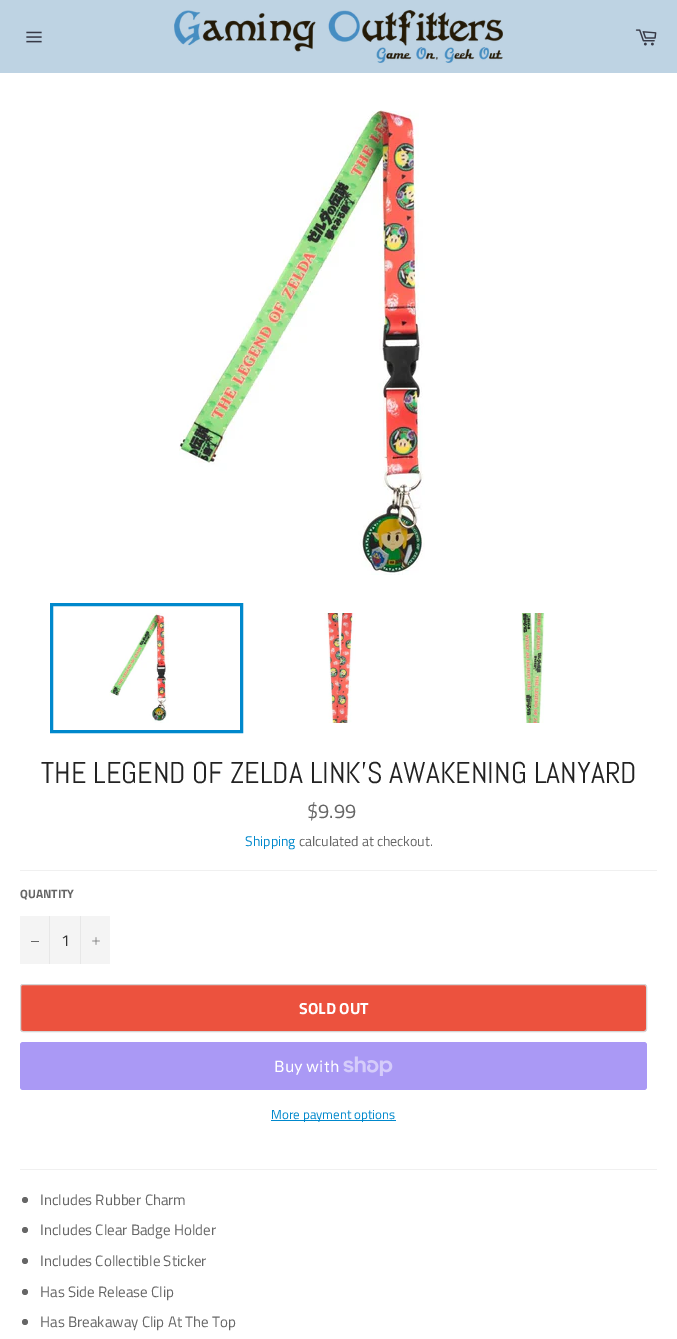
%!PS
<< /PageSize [677 1339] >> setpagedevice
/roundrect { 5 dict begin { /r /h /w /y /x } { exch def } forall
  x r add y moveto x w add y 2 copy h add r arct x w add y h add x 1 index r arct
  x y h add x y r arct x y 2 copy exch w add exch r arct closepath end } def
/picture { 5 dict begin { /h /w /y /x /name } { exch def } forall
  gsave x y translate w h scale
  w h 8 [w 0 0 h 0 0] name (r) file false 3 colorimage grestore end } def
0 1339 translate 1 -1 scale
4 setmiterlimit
0.745 0.827 0.89 setrgbcolor
0 0 677 1339 rectfill
(img1.rgb) 26 31 16 12 picture
(img2.rgb) 174 10 329 53 picture
(img3.rgb) 635 29 22 17 picture
1 setgray
0 73 677 1266 rectfill
(img4.rgb) 179 110 246 465 picture
(img5.rgb) 109 613 60 110 picture
0 0.533 0.8 setrgbcolor
3 setlinewidth
51.5 604.5 190 127 rectstroke
(img6.rgb) 324 613 32 110 picture
(img7.rgb) 521 613 24 110 picture
/Abel-Regular [30 0 0 -30 0 0] selectfont
0.133 setgray
41 783 moveto (THE LEGEND OF ZELDA LINK'S AWAKENING LANYARD) show
/TitilliumWeb-Regular [20 0 0 -20 0 0] selectfont
0.4 setgray
307 818 moveto ($9.99) show
/TitilliumWeb-Regular [14 0 0 -14 0 0] selectfont
0 0.533 0.8 setrgbcolor
245 846 moveto (Shipping) show
0.4 setgray
299 846 moveto (calculated at checkout.) show
0.941 setgray
20 870 637 1 rectfill
/TitilliumWeb-Bold [12 0 0 -12 0 0] selectfont
0.4 setgray
20 898 moveto (QUANTITY) show
0.957 setgray
20 916 90 48 rectfill
0.906 setgray
49 916 1 48 rectfill
0.4 setgray
31 941 8 1 rectfill
/TitilliumWeb-Regular [16 0 0 -16 0 0] selectfont
0.2 setgray
61 946 moveto (1) show
0.906 setgray
80 916 1 48 rectfill
(img8.rgb) 92 937 8 8 picture
0.925 0.322 0.243 setrgbcolor
20.5 984.5 626 47 2.5 roundrect gsave fill grestore
0.835 setgray
1 setlinewidth
stroke
/TitilliumWeb-Bold [16 0 0 -16 0 0] selectfont
1 setgray
299 1014 moveto (SOLD OUT) show
0.667 0.6 0.961 setrgbcolor
20 1042 627 48 3 roundrect fill
/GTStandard-Regular [16 0 0 -16 0 0] selectfont
1 setgray
274 1072 moveto (Buy with) show
(img9.rgb) 343 1056 50 20 picture
0 0.533 0.8 setrgbcolor
271 1120 125 1 rectfill
/TitilliumWeb-Regular [13 0 0 -13 0 0] selectfont
271 1119 moveto (More payment options) show
0.941 setgray
20 1169 637 1 rectfill
0.4 setgray
newpath 25 1200 3 0 360 arc closepath fill
/TitilliumWeb-Regular [15 0 0 -15 0 0] selectfont
40 1205 moveto (Includes Rubber Charm) show
newpath 25 1230 3 0 360 arc closepath fill
40 1235 moveto (Includes Clear Badge Holder) show
newpath 25 1261 3 0 360 arc closepath fill
40 1266 moveto (Includes Collectible Sticker) show
newpath 25 1292 3 0 360 arc closepath fill
40 1297 moveto (Has Side Release Clip) show
newpath 25 1322 3 0 360 arc closepath fill
40 1327 moveto (Has Breakaway Clip At The Top) show
showpage
